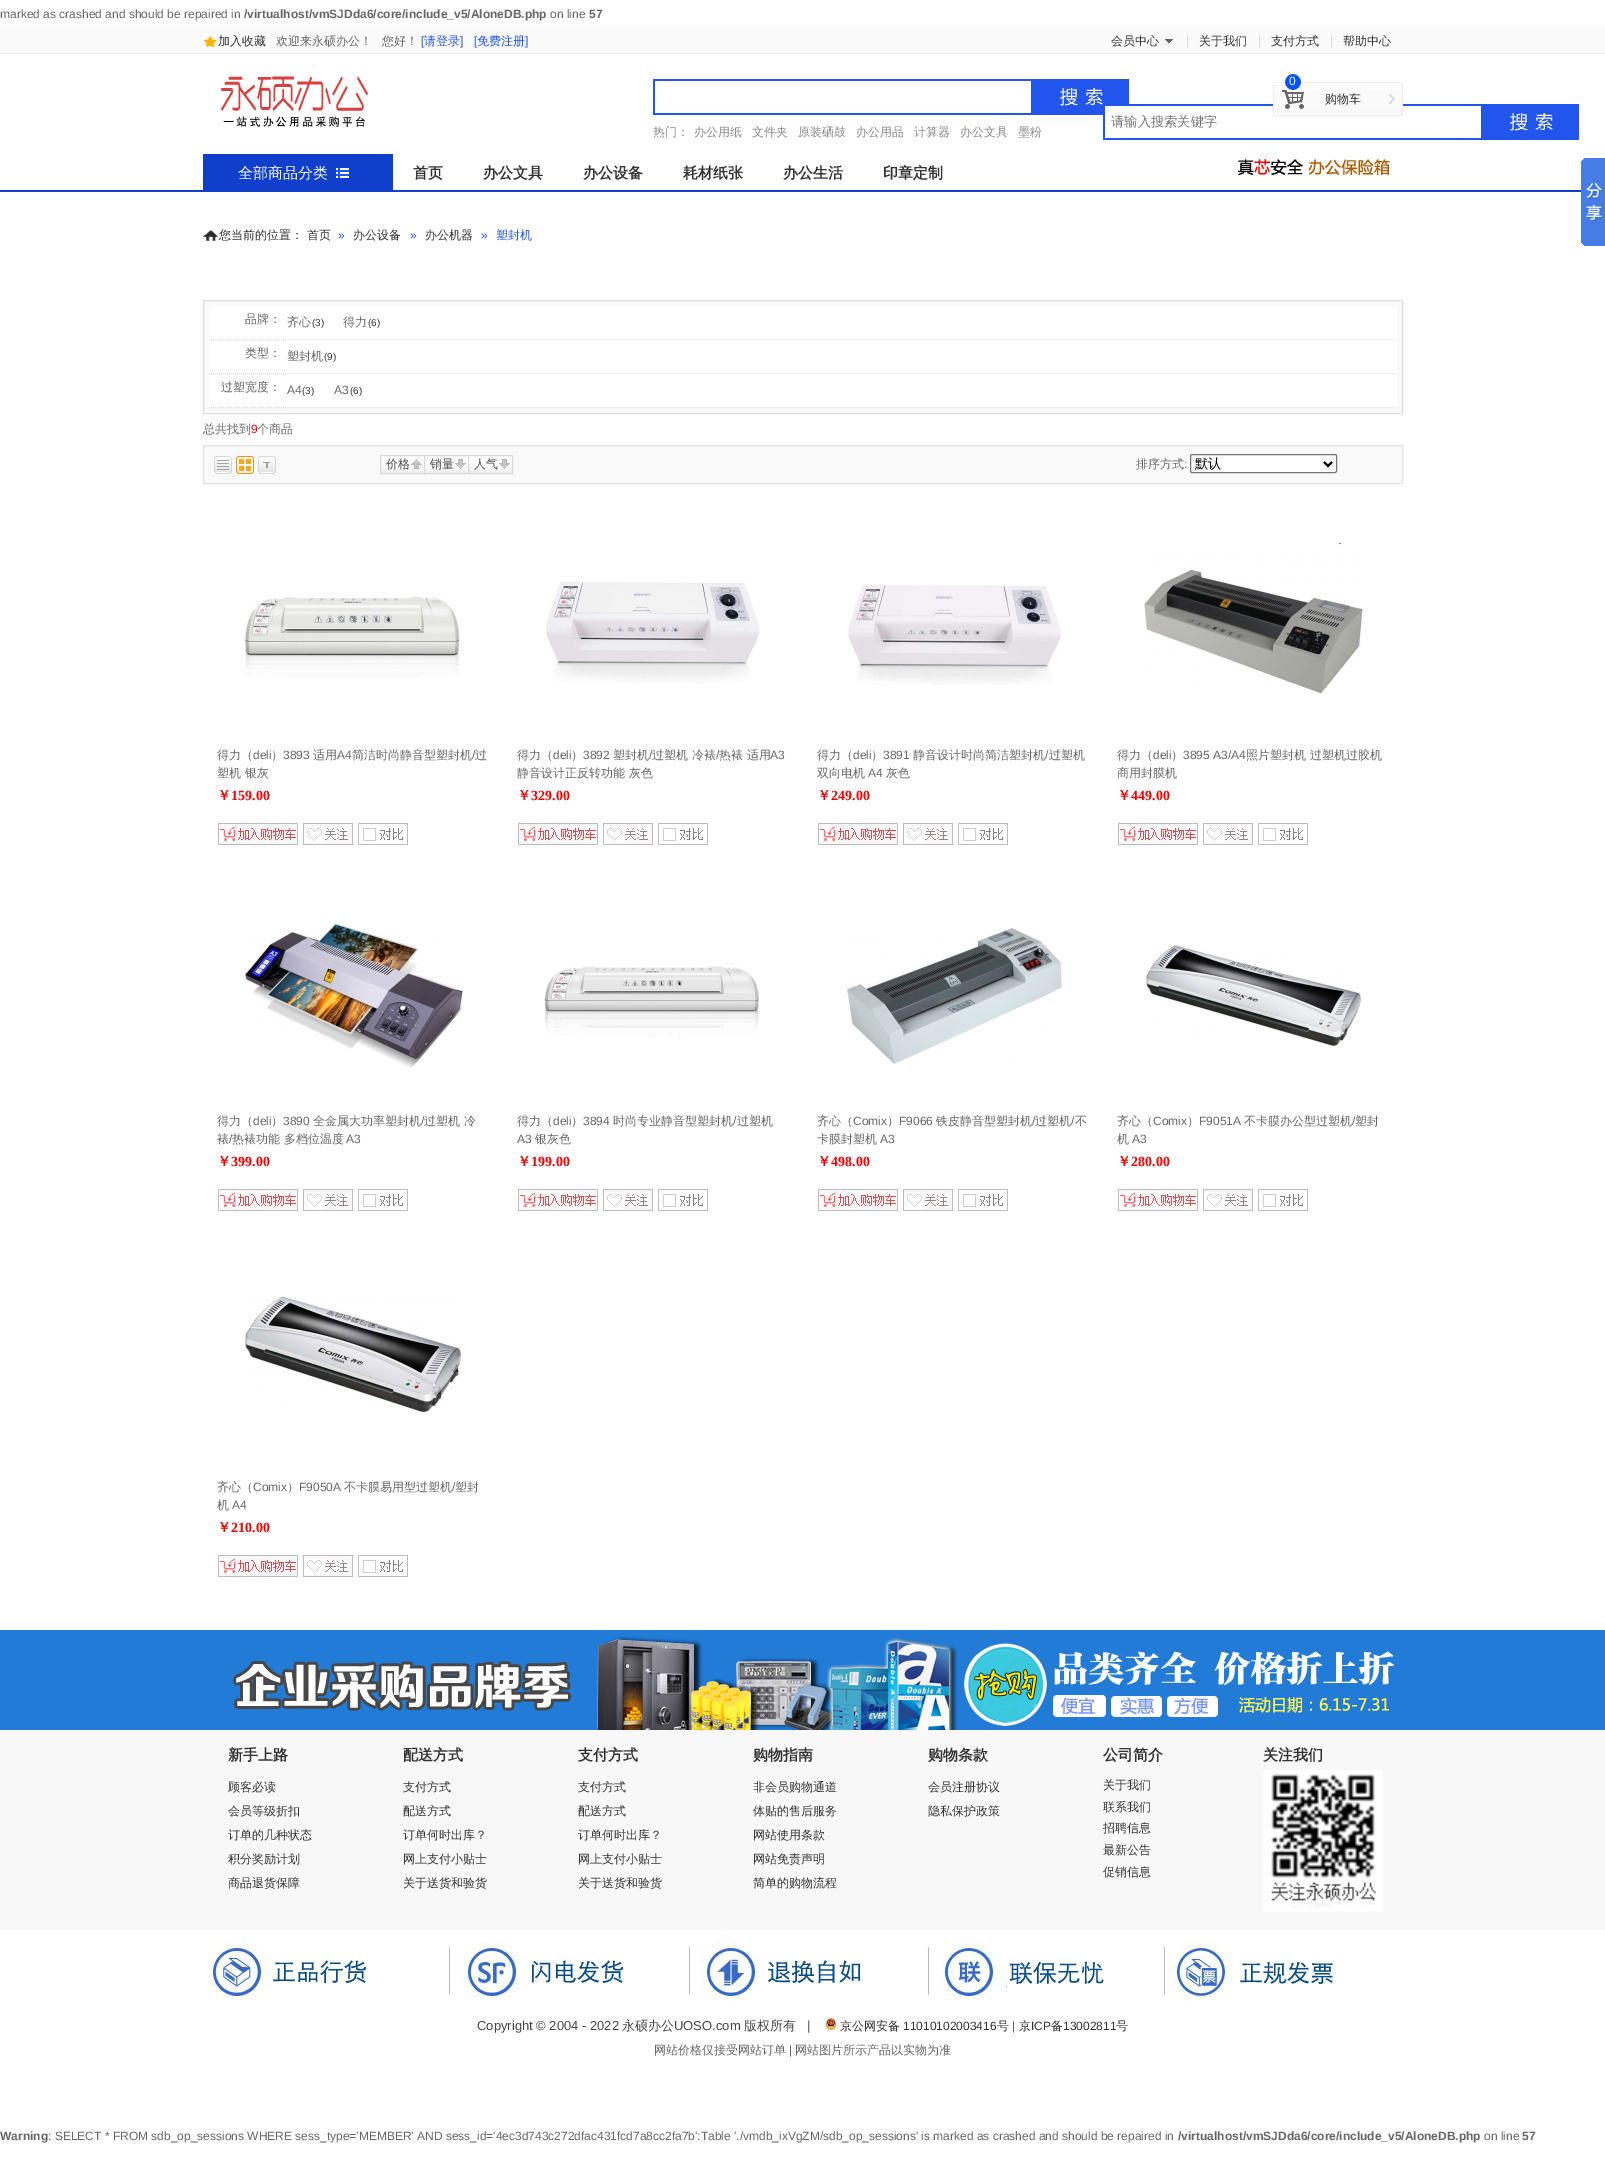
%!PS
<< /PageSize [1605 2173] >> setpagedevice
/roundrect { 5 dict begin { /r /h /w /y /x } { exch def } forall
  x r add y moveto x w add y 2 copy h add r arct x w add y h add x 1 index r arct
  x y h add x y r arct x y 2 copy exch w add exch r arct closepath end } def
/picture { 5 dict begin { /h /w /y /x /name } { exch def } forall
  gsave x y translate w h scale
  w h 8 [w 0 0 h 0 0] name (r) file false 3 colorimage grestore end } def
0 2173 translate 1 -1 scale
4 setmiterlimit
1 setgray
0 0 1605 2173 rectfill
/LiberationSans-Regular [12 0 0 -12 0 0] selectfont
0.4 setgray
0 18 moveto (marked as crashed and should be repaired in) show
/LiberationSans-Bold [12 0 0 -12 0 0] selectfont
244 18 moveto (/virtualhost/vmSJDda6/core/include_v5/AloneDB.php) show
/LiberationSans-Regular [12 0 0 -12 0 0] selectfont
550 18 moveto (on line) show
/LiberationSans-Bold [12 0 0 -12 0 0] selectfont
589 18 moveto (57) show
0.98 setgray
0 26 1605 27 rectfill
0.933 setgray
0 53 1605 1 rectfill
(img1.rgb) 203 36 14 11 picture
/WenQuanYiZenHei-Medium [12 0 0 -12 0 0] selectfont
0.2 setgray
218 45 moveto (加入收藏) show
0.4 setgray
276 45 moveto (欢迎来永硕办公！) show
382 45 moveto (您好！) show
/LiberationSans-Regular [12 0 0 -12 0 0] selectfont
0.133 0.333 0.933 setrgbcolor
421 45 moveto ([) show
/WenQuanYiZenHei-Medium [12 0 0 -12 0 0] selectfont
424 45 moveto (请登录) show
/LiberationSans-Regular [12 0 0 -12 0 0] selectfont
460 45 moveto (]) show
474 45 moveto ([) show
/WenQuanYiZenHei-Medium [12 0 0 -12 0 0] selectfont
477 45 moveto (免费注册) show
/LiberationSans-Regular [12 0 0 -12 0 0] selectfont
525 45 moveto (]) show
(img2.rgb) 1165 39 8 4 picture
/WenQuanYiZenHei-Medium [12 0 0 -12 0 0] selectfont
0.2 setgray
1111 45 moveto (会员中心) show
1199 45 moveto (关于我们) show
0.867 setgray
1187 35 1 12 rectfill
0.2 setgray
1271 45 moveto (支付方式) show
0.867 setgray
1259 35 1 12 rectfill
0.2 setgray
1343 45 moveto (帮助中心) show
0.867 setgray
1331 35 1 12 rectfill
(img3.rgb) 221 76 147 51 picture
(img6.rgb) 653 79 476 36 picture
(img6.rgb) 1103 104 476 36 picture
(img4.rgb) 1273 82 130 34 picture
(img5.rgb) 1285 74 16 16 picture
/LiberationSans-Regular [12 0 0 -12 0 0] selectfont
1 setgray
1289 85 moveto (0) show
/WenQuanYiZenHei-Medium [12 0 0 -12 0 0] selectfont
0.2 setgray
1325 103 moveto (购物车) show
/WenQuanYiZenHei-Medium [13.25 0 0 -13.25 0 0] selectfont
0.459 setgray
1111 126 moveto (请输入搜索关键字) show
/WenQuanYiZenHei-Medium [12 0 0 -12 0 0] selectfont
0.537 setgray
653 136 moveto (热门：) show
694 136 moveto (办公用纸) show
752 136 moveto (文件夹) show
798 136 moveto (原装硒鼓) show
856 136 moveto (办公用品) show
914 136 moveto (计算器) show
960 136 moveto (办公文具) show
1018 136 moveto (墨粉) show
0.063 0.247 0.796 setrgbcolor
0 190 1581 2 rectfill
203 154 190 36 rectfill
(img7.rgb) 336 168 13 10 picture
/WenQuanYiZenHei-Medium [15 0 0 -15 0 0] selectfont
1 setgray
238 178 moveto (全部商品分类) show
/WenQuanYiZenHei-Bold [15 0 0 -15 0 0] selectfont
0.2 setgray
413 178 moveto (首页) show
483 178 moveto (办公文具) show
583 178 moveto (办公设备) show
683 178 moveto (耗材纸张) show
783 178 moveto (办公生活) show
883 178 moveto (印章定制) show
(img8.rgb) 1238 154 154 22 picture
(img9.rgb) 1581 158 24 88 picture
(img10.rgb) 203 230 15 11 picture
/WenQuanYiZenHei-Medium [12 0 0 -12 0 0] selectfont
219 239 moveto (您当前的位置： 首页) show
/LiberationSans-Regular [12 0 0 -12 0 0] selectfont
0.133 0.333 0.933 setrgbcolor
338 239 moveto (») show
/WenQuanYiZenHei-Medium [12 0 0 -12 0 0] selectfont
0.2 setgray
353 239 moveto (办公设备) show
/LiberationSans-Regular [12 0 0 -12 0 0] selectfont
0.133 0.333 0.933 setrgbcolor
410 239 moveto (») show
/WenQuanYiZenHei-Medium [12 0 0 -12 0 0] selectfont
0.2 setgray
425 239 moveto (办公机器) show
/LiberationSans-Regular [12 0 0 -12 0 0] selectfont
0.133 0.333 0.933 setrgbcolor
481 239 moveto (») show
/WenQuanYiZenHei-Medium [12 0 0 -12 0 0] selectfont
496 239 moveto (塑封机) show
0.976 setgray
newpath 203.5 300.5 moveto 1402.5 300.5 lineto 1402.5 413.5 lineto 203.5 413.5 lineto closepath gsave fill grestore
0.867 setgray
stroke
1 setgray
209 306 1188 102 rectfill
0.867 setgray
[1 1] 0 setdash
newpath 209 339.5 moveto 287 339.5 lineto stroke
0.4 setgray
245 323 moveto (品牌：) show
0.933 setgray
287 339 1110 1 rectfill
0.4 setgray
287 326 moveto (齐心) show
/LiberationSans-Regular [10 0 0 -10 0 0] selectfont
0.2 setgray
312 326 moveto (\(3\)) show
/WenQuanYiZenHei-Medium [12 0 0 -12 0 0] selectfont
0.4 setgray
343 326 moveto (得力) show
/LiberationSans-Regular [10 0 0 -10 0 0] selectfont
0.2 setgray
368 326 moveto (\(6\)) show
0.867 setgray
newpath 209 373.5 moveto 287 373.5 lineto stroke
/WenQuanYiZenHei-Medium [12 0 0 -12 0 0] selectfont
0.4 setgray
245 357 moveto (类型：) show
0.933 setgray
287 373 1110 1 rectfill
0.4 setgray
287 360 moveto (塑封机) show
/LiberationSans-Regular [10 0 0 -10 0 0] selectfont
0.2 setgray
324 360 moveto (\(9\)) show
0.867 setgray
newpath 209 407.5 moveto 287 407.5 lineto stroke
/WenQuanYiZenHei-Medium [12 0 0 -12 0 0] selectfont
0.4 setgray
221 391 moveto (过塑宽度：) show
0.933 setgray
287 407 1110 1 rectfill
/LiberationSans-Regular [12 0 0 -12 0 0] selectfont
0.4 setgray
287 394 moveto (A4) show
/LiberationSans-Regular [10 0 0 -10 0 0] selectfont
0.2 setgray
302 394 moveto (\(3\)) show
/LiberationSans-Regular [12 0 0 -12 0 0] selectfont
0.4 setgray
334 394 moveto (A3) show
/LiberationSans-Regular [10 0 0 -10 0 0] selectfont
0.2 setgray
350 394 moveto (\(6\)) show
/WenQuanYiZenHei-Medium [12 0 0 -12 0 0] selectfont
0.4 setgray
203 433 moveto (总共找到) show
/LiberationSans-Regular [12 0 0 -12 0 0] selectfont
1 0 0 setrgbcolor
251 433 moveto (9) show
/WenQuanYiZenHei-Medium [12 0 0 -12 0 0] selectfont
0.4 setgray
257 433 moveto (个商品) show
0.976 setgray
newpath 203.5 445.5 moveto 1402.5 445.5 lineto 1402.5 483.5 lineto 203.5 483.5 lineto closepath gsave fill grestore
0.89 setgray
[] 0 setdash
stroke
(img11.rgb) 214 456 18 18 picture
(img12.rgb) 236 456 18 18 picture
(img13.rgb) 258 456 18 18 picture
(img14.rgb) 381 456 43 17 picture
0.851 setgray
380.5 455.5 44 18 rectstroke
(img15.rgb) 411 459 11 10 picture
0.29 setgray
386 468 moveto (价格) show
(img14.rgb) 425 456 43 17 picture
0.851 setgray
424.5 455.5 44 18 rectstroke
(img16.rgb) 455 459 11 10 picture
0.29 setgray
430 468 moveto (销量) show
(img14.rgb) 469 456 43 17 picture
0.851 setgray
468.5 455.5 44 18 rectstroke
(img16.rgb) 499 459 11 10 picture
0.29 setgray
474 468 moveto (人气) show
0.4 setgray
1136 468 moveto (排序方式) show
/LiberationSans-Regular [12 0 0 -12 0 0] selectfont
1184 468 moveto (:) show
1 setgray
1190.5 454.5 146 18 1.5 roundrect gsave fill grestore
0.463 setgray
stroke
0 setgray
2 setlinewidth
newpath 1324 462 moveto 1328 466 lineto 1332 462 lineto stroke
/WenQuanYiZenHei-Medium [13.25 0 0 -13.25 0 0] selectfont
1195 468 moveto (默认) show
(img17.rgb) 245 596 215 81 picture
/WenQuanYiZenHei-Medium [12 0 0 -12 0 0] selectfont
0.4 setgray
217 759 moveto (得力（) show
/LiberationSans-Regular [12 0 0 -12 0 0] selectfont
253 759 moveto (deli) show
/WenQuanYiZenHei-Medium [12 0 0 -12 0 0] selectfont
271 759 moveto (）) show
/LiberationSans-Regular [12 0 0 -12 0 0] selectfont
283 759 moveto (3893) show
/WenQuanYiZenHei-Medium [12 0 0 -12 0 0] selectfont
313 759 moveto (适用) show
/LiberationSans-Regular [12 0 0 -12 0 0] selectfont
337 759 moveto (A4) show
/WenQuanYiZenHei-Medium [12 0 0 -12 0 0] selectfont
352 759 moveto (简洁时尚静音型塑封机) show
/LiberationSans-Regular [12 0 0 -12 0 0] selectfont
472 759 moveto (/) show
/WenQuanYiZenHei-Medium [12 0 0 -12 0 0] selectfont
475 759 moveto (过) show
217 777 moveto (塑机 银灰) show
/WenQuanYiZenHei-Bold [14 0 0 -14 0 0] selectfont
0.933 0 0 setrgbcolor
217 800 moveto (￥) show
/LiberationSerif-Bold [14 0 0 -14 0 0] selectfont
231 800 moveto (159.00) show
(img18.rgb) 218 823 80 22 picture
(img19.rgb) 303 823 50 22 picture
(img20.rgb) 358 823 50 22 picture
(img21.rgb) 546 581 214 103 picture
/WenQuanYiZenHei-Medium [12 0 0 -12 0 0] selectfont
0.4 setgray
517 759 moveto (得力（) show
/LiberationSans-Regular [12 0 0 -12 0 0] selectfont
553 759 moveto (deli) show
/WenQuanYiZenHei-Medium [12 0 0 -12 0 0] selectfont
571 759 moveto (）) show
/LiberationSans-Regular [12 0 0 -12 0 0] selectfont
583 759 moveto (3892) show
/WenQuanYiZenHei-Medium [12 0 0 -12 0 0] selectfont
613 759 moveto (塑封机) show
/LiberationSans-Regular [12 0 0 -12 0 0] selectfont
649 759 moveto (/) show
/WenQuanYiZenHei-Medium [12 0 0 -12 0 0] selectfont
652 759 moveto (过塑机 冷裱 热裱 适用) show
/LiberationSans-Regular [12 0 0 -12 0 0] selectfont
716 759 moveto (/) show
770 759 moveto (A3) show
/WenQuanYiZenHei-Medium [12 0 0 -12 0 0] selectfont
517 777 moveto (静音设计正反转功能 灰色) show
/WenQuanYiZenHei-Bold [14 0 0 -14 0 0] selectfont
0.933 0 0 setrgbcolor
517 800 moveto (￥) show
/LiberationSerif-Bold [14 0 0 -14 0 0] selectfont
531 800 moveto (329.00) show
(img18.rgb) 518 823 80 22 picture
(img19.rgb) 603 823 50 22 picture
(img20.rgb) 658 823 50 22 picture
(img22.rgb) 848 584 213 101 picture
/WenQuanYiZenHei-Medium [12 0 0 -12 0 0] selectfont
0.4 setgray
817 759 moveto (得力（) show
/LiberationSans-Regular [12 0 0 -12 0 0] selectfont
853 759 moveto (deli) show
/WenQuanYiZenHei-Medium [12 0 0 -12 0 0] selectfont
871 759 moveto (）) show
/LiberationSans-Regular [12 0 0 -12 0 0] selectfont
883 759 moveto (3891) show
/WenQuanYiZenHei-Medium [12 0 0 -12 0 0] selectfont
913 759 moveto (静音设计时尚简洁塑封机) show
/LiberationSans-Regular [12 0 0 -12 0 0] selectfont
1045 759 moveto (/) show
/WenQuanYiZenHei-Medium [12 0 0 -12 0 0] selectfont
1049 759 moveto (过塑机) show
817 777 moveto (双向电机) show
/LiberationSans-Regular [12 0 0 -12 0 0] selectfont
868 777 moveto (A4) show
/WenQuanYiZenHei-Medium [12 0 0 -12 0 0] selectfont
886 777 moveto (灰色) show
/WenQuanYiZenHei-Bold [14 0 0 -14 0 0] selectfont
0.933 0 0 setrgbcolor
817 800 moveto (￥) show
/LiberationSerif-Bold [14 0 0 -14 0 0] selectfont
831 800 moveto (249.00) show
(img18.rgb) 818 823 80 22 picture
(img19.rgb) 903 823 50 22 picture
(img20.rgb) 958 823 50 22 picture
(img23.rgb) 1143 542 220 153 picture
/WenQuanYiZenHei-Medium [12 0 0 -12 0 0] selectfont
0.4 setgray
1117 759 moveto (得力（) show
/LiberationSans-Regular [12 0 0 -12 0 0] selectfont
1153 759 moveto (deli) show
/WenQuanYiZenHei-Medium [12 0 0 -12 0 0] selectfont
1171 759 moveto (）) show
/LiberationSans-Regular [12 0 0 -12 0 0] selectfont
1183 759 moveto (3895 A3/A4) show
/WenQuanYiZenHei-Medium [12 0 0 -12 0 0] selectfont
1246 759 moveto (照片塑封机 过塑机过胶机) show
1117 777 moveto (商用封膜机) show
/WenQuanYiZenHei-Bold [14 0 0 -14 0 0] selectfont
0.933 0 0 setrgbcolor
1117 800 moveto (￥) show
/LiberationSerif-Bold [14 0 0 -14 0 0] selectfont
1131 800 moveto (449.00) show
(img18.rgb) 1118 823 80 22 picture
(img19.rgb) 1203 823 50 22 picture
(img20.rgb) 1258 823 50 22 picture
(img24.rgb) 244 922 219 146 picture
/WenQuanYiZenHei-Medium [12 0 0 -12 0 0] selectfont
0.4 setgray
217 1125 moveto (得力（) show
/LiberationSans-Regular [12 0 0 -12 0 0] selectfont
253 1125 moveto (deli) show
/WenQuanYiZenHei-Medium [12 0 0 -12 0 0] selectfont
271 1125 moveto (）) show
/LiberationSans-Regular [12 0 0 -12 0 0] selectfont
283 1125 moveto (3890) show
/WenQuanYiZenHei-Medium [12 0 0 -12 0 0] selectfont
313 1125 moveto (全金属大功率塑封机) show
/LiberationSans-Regular [12 0 0 -12 0 0] selectfont
421 1125 moveto (/) show
/WenQuanYiZenHei-Medium [12 0 0 -12 0 0] selectfont
424 1125 moveto (过塑机 冷) show
217 1143 moveto (裱) show
/LiberationSans-Regular [12 0 0 -12 0 0] selectfont
229 1143 moveto (/) show
/WenQuanYiZenHei-Medium [12 0 0 -12 0 0] selectfont
232 1143 moveto (热裱功能 多档位温度) show
/LiberationSans-Regular [12 0 0 -12 0 0] selectfont
346 1143 moveto (A3) show
/WenQuanYiZenHei-Bold [14 0 0 -14 0 0] selectfont
0.933 0 0 setrgbcolor
217 1166 moveto (￥) show
/LiberationSerif-Bold [14 0 0 -14 0 0] selectfont
231 1166 moveto (399.00) show
(img18.rgb) 218 1189 80 22 picture
(img19.rgb) 303 1189 50 22 picture
(img20.rgb) 358 1189 50 22 picture
(img25.rgb) 544 966 215 71 picture
/WenQuanYiZenHei-Medium [12 0 0 -12 0 0] selectfont
0.4 setgray
517 1125 moveto (得力（) show
/LiberationSans-Regular [12 0 0 -12 0 0] selectfont
553 1125 moveto (deli) show
/WenQuanYiZenHei-Medium [12 0 0 -12 0 0] selectfont
571 1125 moveto (）) show
/LiberationSans-Regular [12 0 0 -12 0 0] selectfont
583 1125 moveto (3894) show
/WenQuanYiZenHei-Medium [12 0 0 -12 0 0] selectfont
613 1125 moveto (时尚专业静音型塑封机) show
/LiberationSans-Regular [12 0 0 -12 0 0] selectfont
733 1125 moveto (/) show
/WenQuanYiZenHei-Medium [12 0 0 -12 0 0] selectfont
737 1125 moveto (过塑机) show
/LiberationSans-Regular [12 0 0 -12 0 0] selectfont
517 1143 moveto (A3) show
/WenQuanYiZenHei-Medium [12 0 0 -12 0 0] selectfont
535 1143 moveto (银灰色) show
/WenQuanYiZenHei-Bold [14 0 0 -14 0 0] selectfont
0.933 0 0 setrgbcolor
517 1166 moveto (￥) show
/LiberationSerif-Bold [14 0 0 -14 0 0] selectfont
531 1166 moveto (199.00) show
(img18.rgb) 518 1189 80 22 picture
(img19.rgb) 603 1189 50 22 picture
(img20.rgb) 658 1189 50 22 picture
(img26.rgb) 847 928 215 136 picture
/WenQuanYiZenHei-Medium [12 0 0 -12 0 0] selectfont
0.4 setgray
817 1125 moveto (齐心（) show
/LiberationSans-Regular [12 0 0 -12 0 0] selectfont
853 1125 moveto (Comix) show
/WenQuanYiZenHei-Medium [12 0 0 -12 0 0] selectfont
887 1125 moveto (）) show
/LiberationSans-Regular [12 0 0 -12 0 0] selectfont
899 1125 moveto (F9066) show
/WenQuanYiZenHei-Medium [12 0 0 -12 0 0] selectfont
936 1125 moveto (铁皮静音型塑封机) show
/LiberationSans-Regular [12 0 0 -12 0 0] selectfont
1032 1125 moveto (/) show
/WenQuanYiZenHei-Medium [12 0 0 -12 0 0] selectfont
1035 1125 moveto (过塑机) show
/LiberationSans-Regular [12 0 0 -12 0 0] selectfont
1071 1125 moveto (/) show
/WenQuanYiZenHei-Medium [12 0 0 -12 0 0] selectfont
1075 1125 moveto (不) show
817 1143 moveto (卡膜封塑机) show
/LiberationSans-Regular [12 0 0 -12 0 0] selectfont
880 1143 moveto (A3) show
/WenQuanYiZenHei-Bold [14 0 0 -14 0 0] selectfont
0.933 0 0 setrgbcolor
817 1166 moveto (￥) show
/LiberationSerif-Bold [14 0 0 -14 0 0] selectfont
831 1166 moveto (498.00) show
(img18.rgb) 818 1189 80 22 picture
(img19.rgb) 903 1189 50 22 picture
(img20.rgb) 958 1189 50 22 picture
(img27.rgb) 1146 945 215 102 picture
/WenQuanYiZenHei-Medium [12 0 0 -12 0 0] selectfont
0.4 setgray
1117 1125 moveto (齐心（) show
/LiberationSans-Regular [12 0 0 -12 0 0] selectfont
1153 1125 moveto (Comix) show
/WenQuanYiZenHei-Medium [12 0 0 -12 0 0] selectfont
1187 1125 moveto (）) show
/LiberationSans-Regular [12 0 0 -12 0 0] selectfont
1199 1125 moveto (F9051A) show
/WenQuanYiZenHei-Medium [12 0 0 -12 0 0] selectfont
1244 1125 moveto (不卡膜办公型过塑机) show
/LiberationSans-Regular [12 0 0 -12 0 0] selectfont
1352 1125 moveto (/) show
/WenQuanYiZenHei-Medium [12 0 0 -12 0 0] selectfont
1355 1125 moveto (塑封) show
1117 1143 moveto (机) show
/LiberationSans-Regular [12 0 0 -12 0 0] selectfont
1132 1143 moveto (A3) show
/WenQuanYiZenHei-Bold [14 0 0 -14 0 0] selectfont
0.933 0 0 setrgbcolor
1117 1166 moveto (￥) show
/LiberationSerif-Bold [14 0 0 -14 0 0] selectfont
1131 1166 moveto (280.00) show
(img18.rgb) 1118 1189 80 22 picture
(img19.rgb) 1203 1189 50 22 picture
(img20.rgb) 1258 1189 50 22 picture
(img28.rgb) 244 1296 218 117 picture
/WenQuanYiZenHei-Medium [12 0 0 -12 0 0] selectfont
0.4 setgray
217 1491 moveto (齐心（) show
/LiberationSans-Regular [12 0 0 -12 0 0] selectfont
253 1491 moveto (Comix) show
/WenQuanYiZenHei-Medium [12 0 0 -12 0 0] selectfont
287 1491 moveto (）) show
/LiberationSans-Regular [12 0 0 -12 0 0] selectfont
299 1491 moveto (F9050A) show
/WenQuanYiZenHei-Medium [12 0 0 -12 0 0] selectfont
344 1491 moveto (不卡膜易用型过塑机) show
/LiberationSans-Regular [12 0 0 -12 0 0] selectfont
452 1491 moveto (/) show
/WenQuanYiZenHei-Medium [12 0 0 -12 0 0] selectfont
455 1491 moveto (塑封) show
217 1509 moveto (机) show
/LiberationSans-Regular [12 0 0 -12 0 0] selectfont
232 1509 moveto (A4) show
/WenQuanYiZenHei-Bold [14 0 0 -14 0 0] selectfont
0.933 0 0 setrgbcolor
217 1532 moveto (￥) show
/LiberationSerif-Bold [14 0 0 -14 0 0] selectfont
231 1532 moveto (210.00) show
(img18.rgb) 218 1555 80 22 picture
(img19.rgb) 303 1555 50 22 picture
(img20.rgb) 358 1555 50 22 picture
(img29.rgb) 0 1630 1605 100 picture
0.973 setgray
0 1730 1605 200 rectfill
/WenQuanYiZenHei-Bold [15 0 0 -15 0 0] selectfont
0.2 setgray
228 1760 moveto (新手上路) show
/WenQuanYiZenHei-Medium [12 0 0 -12 0 0] selectfont
228 1791 moveto (顾客必读) show
228 1815 moveto (会员等级折扣) show
228 1839 moveto (订单的几种状态) show
228 1863 moveto (积分奖励计划) show
228 1887 moveto (商品退货保障) show
/WenQuanYiZenHei-Bold [15 0 0 -15 0 0] selectfont
403 1760 moveto (配送方式) show
/WenQuanYiZenHei-Medium [12 0 0 -12 0 0] selectfont
403 1791 moveto (支付方式) show
403 1815 moveto (配送方式) show
403 1839 moveto (订单何时出库？) show
403 1863 moveto (网上支付小贴士) show
403 1887 moveto (关于送货和验货) show
/WenQuanYiZenHei-Bold [15 0 0 -15 0 0] selectfont
578 1760 moveto (支付方式) show
/WenQuanYiZenHei-Medium [12 0 0 -12 0 0] selectfont
578 1791 moveto (支付方式) show
578 1815 moveto (配送方式) show
578 1839 moveto (订单何时出库？) show
578 1863 moveto (网上支付小贴士) show
578 1887 moveto (关于送货和验货) show
/WenQuanYiZenHei-Bold [15 0 0 -15 0 0] selectfont
753 1760 moveto (购物指南) show
/WenQuanYiZenHei-Medium [12 0 0 -12 0 0] selectfont
753 1791 moveto (非会员购物通道) show
753 1815 moveto (体贴的售后服务) show
753 1839 moveto (网站使用条款) show
753 1863 moveto (网站免责声明) show
753 1887 moveto (简单的购物流程) show
/WenQuanYiZenHei-Bold [15 0 0 -15 0 0] selectfont
928 1760 moveto (购物条款) show
/WenQuanYiZenHei-Medium [12 0 0 -12 0 0] selectfont
928 1791 moveto (会员注册协议) show
928 1815 moveto (隐私保护政策) show
/WenQuanYiZenHei-Bold [15 0 0 -15 0 0] selectfont
1103 1760 moveto (公司简介) show
/WenQuanYiZenHei-Medium [12 0 0 -12 0 0] selectfont
1103 1789 moveto (关于我们) show
1103 1811 moveto (联系我们) show
1103 1832 moveto (招聘信息) show
1103 1854 moveto (最新公告) show
1103 1876 moveto (促销信息) show
/WenQuanYiZenHei-Bold [15 0 0 -15 0 0] selectfont
1263 1760 moveto (关注我们) show
(img30.rgb) 1263 1770 120 142 picture
(img31.rgb) 208 1941 1125 60 picture
/LiberationSans-Regular [13 0 0 -13 0 0] selectfont
0.267 setgray
477 2030 moveto (Copyright © 2004 - 2022) show
/WenQuanYiZenHei-Medium [13 0 0 -13 0 0] selectfont
622 2030 moveto (永硕办公) show
/LiberationSans-Regular [13 0 0 -13 0 0] selectfont
674 2030 moveto (UOSO.com) show
/WenQuanYiZenHei-Medium [13 0 0 -13 0 0] selectfont
744 2030 moveto (版权所有) show
/LiberationSans-Regular [13 0 0 -13 0 0] selectfont
807 2030 moveto (|) show
(img32.rgb) 825 2018 12 12 picture
/WenQuanYiZenHei-Medium [12 0 0 -12 0 0] selectfont
0.2 setgray
840 2030 moveto (京公网安备) show
/LiberationSans-Regular [12 0 0 -12 0 0] selectfont
903 2030 moveto (11010102003416) show
/WenQuanYiZenHei-Medium [12 0 0 -12 0 0] selectfont
997 2030 moveto (号) show
/LiberationSans-Regular [12 0 0 -12 0 0] selectfont
0.4 setgray
1012 2030 moveto (|) show
/WenQuanYiZenHei-Medium [12 0 0 -12 0 0] selectfont
0.2 setgray
1019 2030 moveto (京) show
/LiberationSans-Regular [12 0 0 -12 0 0] selectfont
1031 2030 moveto (ICP) show
/WenQuanYiZenHei-Medium [12 0 0 -12 0 0] selectfont
1051 2030 moveto (备) show
/LiberationSans-Regular [12 0 0 -12 0 0] selectfont
1063 2030 moveto (13002811) show
/WenQuanYiZenHei-Medium [12 0 0 -12 0 0] selectfont
1116 2030 moveto (号) show
0.4 setgray
654 2054 moveto (网站价格仅接受网站订单) show
/LiberationSans-Regular [12 0 0 -12 0 0] selectfont
789 2054 moveto (|) show
/WenQuanYiZenHei-Medium [12 0 0 -12 0 0] selectfont
795 2054 moveto (网站图片所示产品以实物为准) show
/LiberationSans-Bold [12 0 0 -12 0 0] selectfont
0 2140 moveto (Warning) show
/LiberationSans-Regular [12 0 0 -12 0 0] selectfont
48 2140 moveto (: SELECT * FROM sdb_op_sessions WHERE sess_type='MEMBER' AND sess_id='4ec3d743c272dfac431fcd7a8cc2fa7b':Table './vmdb_ixVgZM/sdb_op_sessions' is marked as crashed and should be repaired in) show
/LiberationSans-Bold [12 0 0 -12 0 0] selectfont
1178 2140 moveto (/virtualhost/vmSJDda6/core/include_v5/AloneDB.php) show
/LiberationSans-Regular [12 0 0 -12 0 0] selectfont
1484 2140 moveto (on line) show
/LiberationSans-Bold [12 0 0 -12 0 0] selectfont
1522 2140 moveto (57) show
showpage
